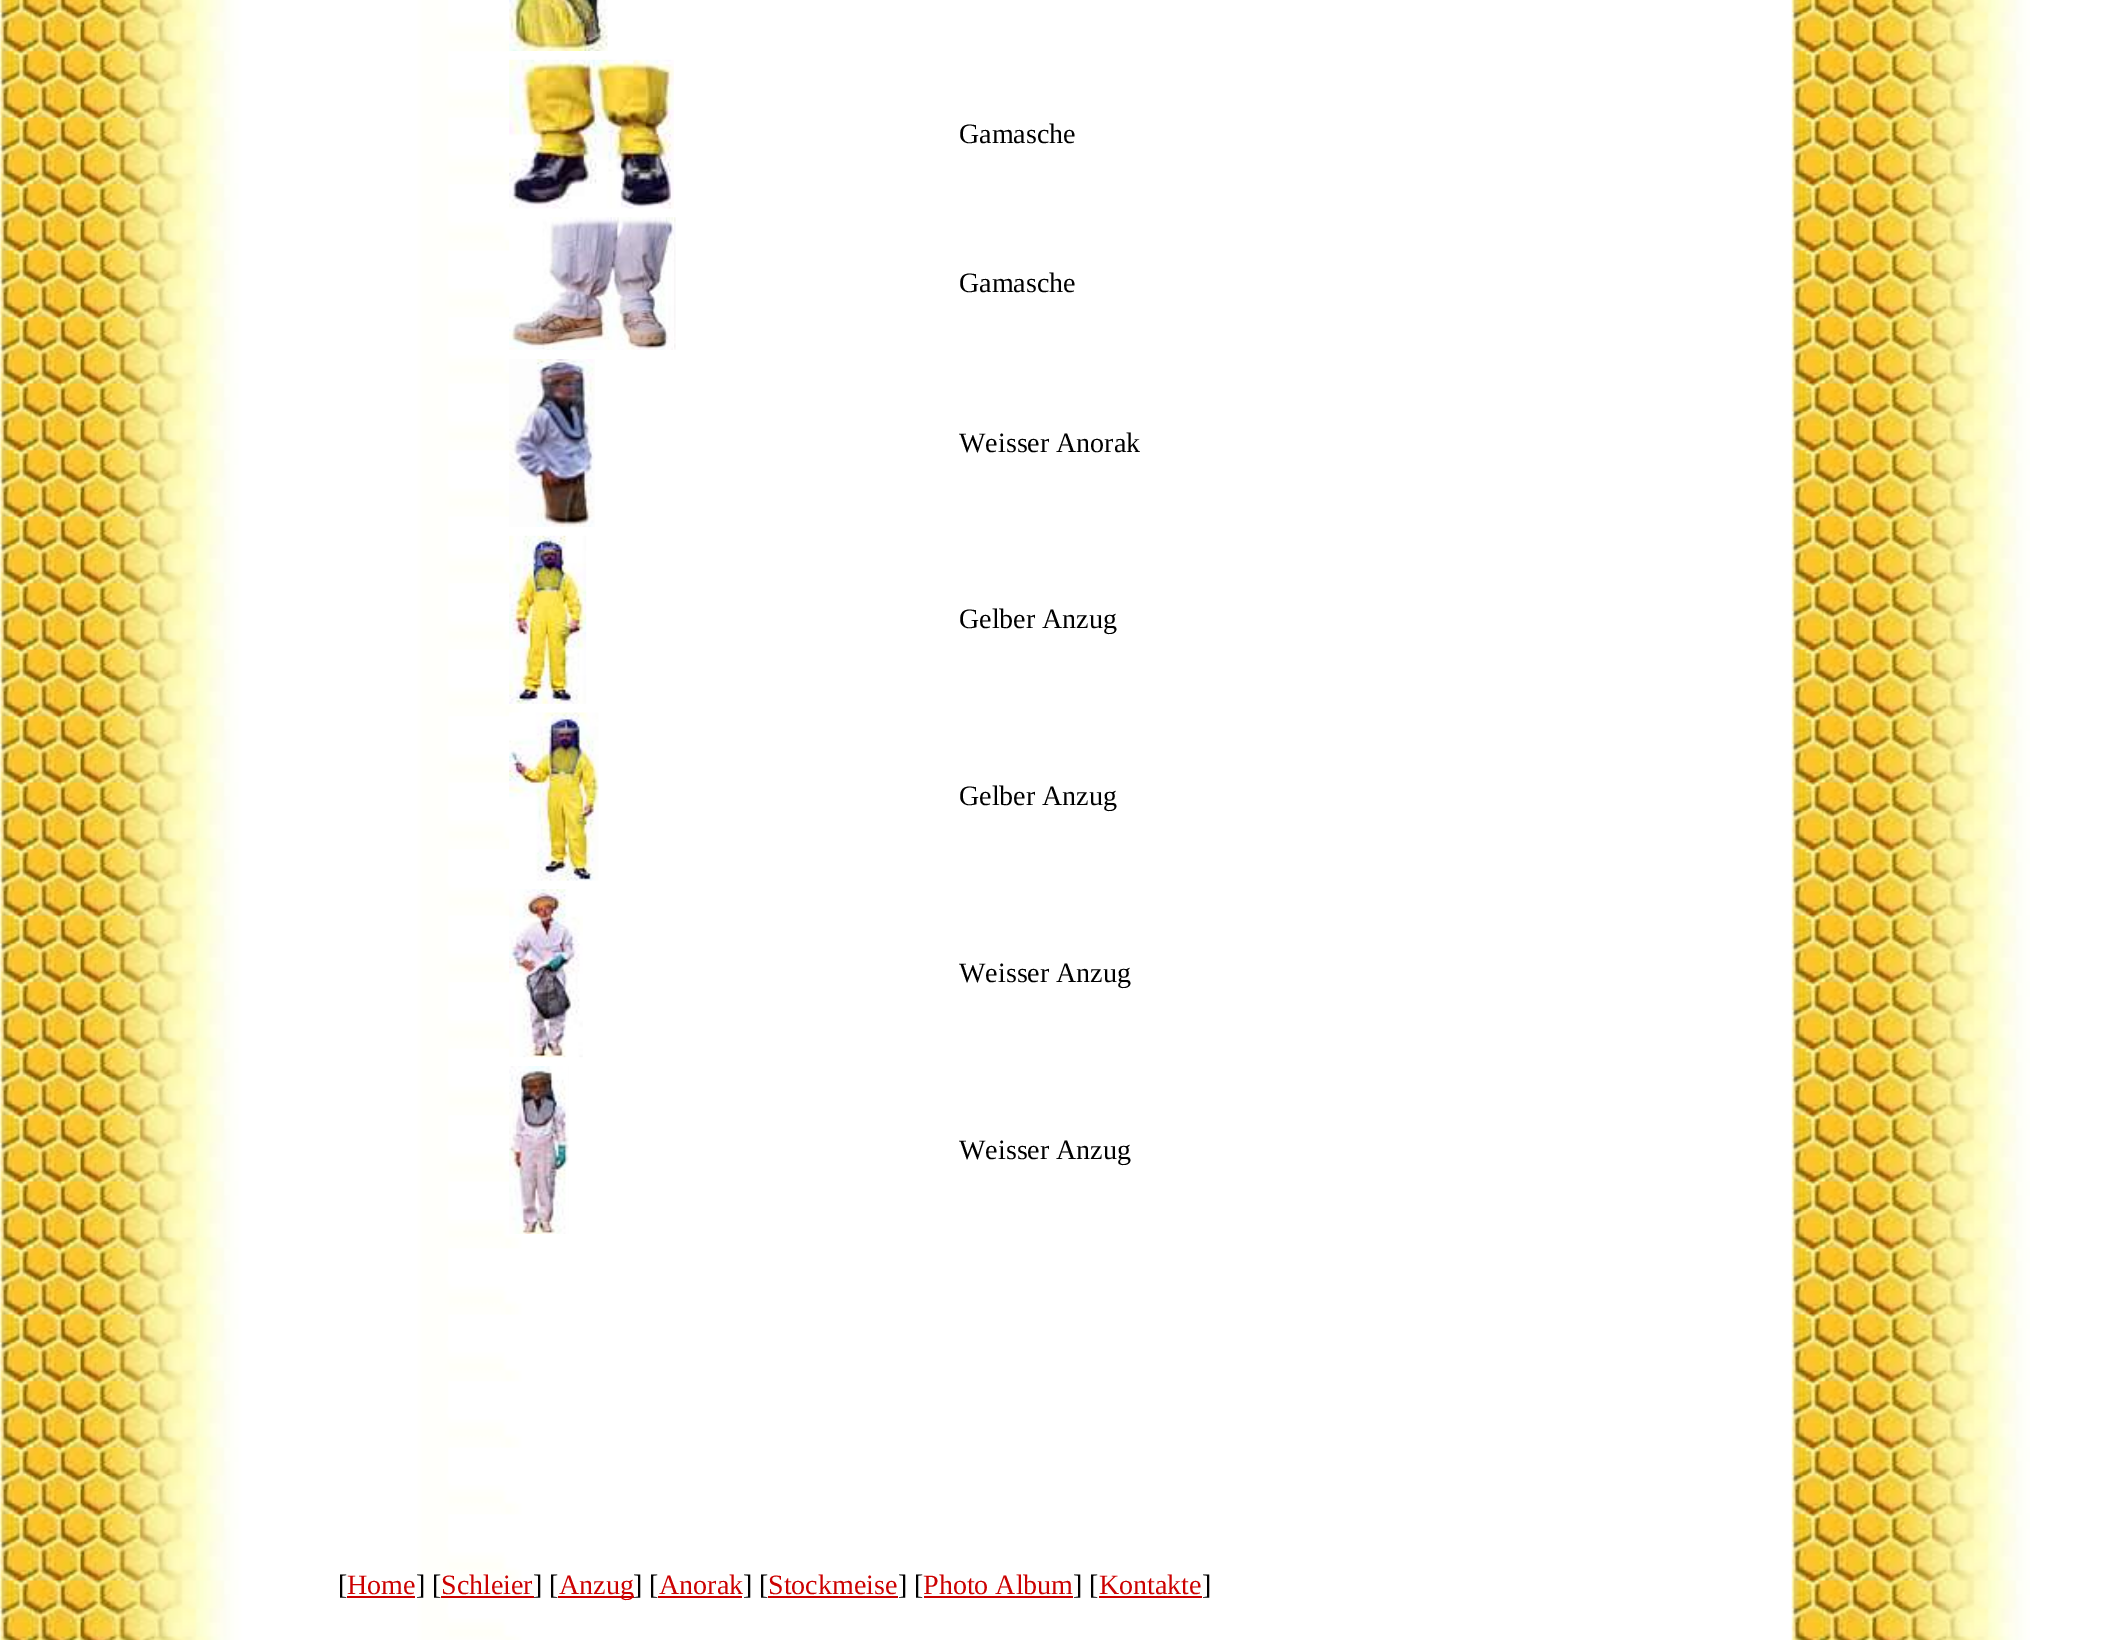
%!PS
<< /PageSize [2120 1640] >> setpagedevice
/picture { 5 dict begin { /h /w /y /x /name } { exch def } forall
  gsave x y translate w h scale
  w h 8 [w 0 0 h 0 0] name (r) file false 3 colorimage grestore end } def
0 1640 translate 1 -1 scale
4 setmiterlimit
1 setgray
0 0 2120 1640 rectfill
(img1.rgb) 0 0 2030 1640 picture
(img2.rgb) 509 0 99 51 picture
(img3.rgb) 509 59 165 150 picture
/LiberationSerif-Regular [28 0 0 -28 0 0] selectfont
0 setgray
959 143 moveto (Gamasche) show
(img4.rgb) 509 217 167 133 picture
959 292 moveto (Gamasche) show
(img5.rgb) 509 359 86 168 picture
959 452 moveto (Weisser Anorak) show
(img6.rgb) 509 535 78 169 picture
959 628 moveto (Gelber Anzug) show
(img7.rgb) 509 712 90 169 picture
959 805 moveto (Gelber Anzug) show
(img8.rgb) 509 889 74 169 picture
959 982 moveto (Weisser Anzug) show
(img9.rgb) 509 1066 60 168 picture
959 1159 moveto (Weisser Anzug) show
338 1594 moveto ([) show
0.8 0 0 setrgbcolor
347 1594 moveto (Home) show
347 1596 68 2 rectfill
0 setgray
416 1594 moveto (] [) show
0.8 0 0 setrgbcolor
441 1594 moveto (Schleier) show
441 1596 93 2 rectfill
0 setgray
533 1594 moveto (] [) show
0.8 0 0 setrgbcolor
558 1596 76 2 rectfill
559 1594 moveto (Anzug) show
0 setgray
633 1594 moveto (] [) show
0.8 0 0 setrgbcolor
659 1594 moveto (Anorak) show
658 1596 84 2 rectfill
0 setgray
743 1594 moveto (] [) show
0.8 0 0 setrgbcolor
768 1594 moveto (Stockmeise) show
768 1596 130 2 rectfill
0 setgray
898 1594 moveto (] [) show
0.8 0 0 setrgbcolor
923 1594 moveto (Photo Album) show
924 1596 149 2 rectfill
0 setgray
1073 1594 moveto (] [) show
0.8 0 0 setrgbcolor
1099 1594 moveto (Kontakte) show
1099 1596 103 2 rectfill
0 setgray
1202 1594 moveto (]) show
showpage
